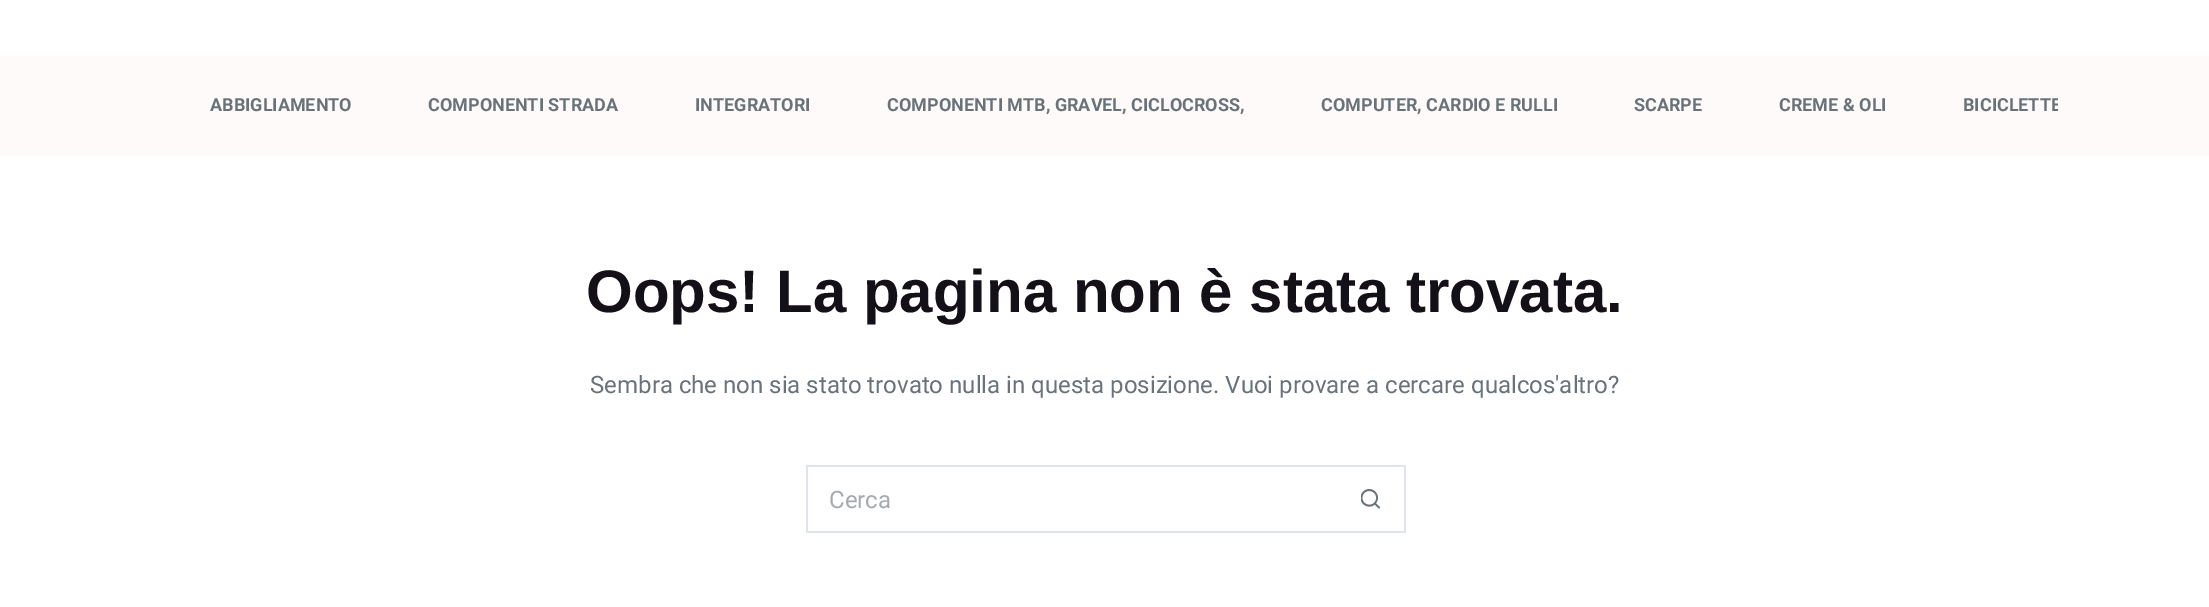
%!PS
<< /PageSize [2209 607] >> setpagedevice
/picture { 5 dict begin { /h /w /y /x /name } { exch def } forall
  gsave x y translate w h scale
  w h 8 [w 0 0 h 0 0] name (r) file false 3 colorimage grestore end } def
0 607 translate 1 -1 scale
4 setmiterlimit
1 setgray
0 0 2209 607 rectfill
1 0.98 0.98 setrgbcolor
0 56 2209 100 rectfill
/Roboto-Bold [18 0 0 -18 0 0] selectfont
0.408 0.447 0.475 setrgbcolor
210 111 moveto (ABBIGLIAMENTO) show
428 111 moveto (COMPONENTI STRADA) show
695 111 moveto (INTEGRATORI) show
887 111 moveto (COMPONENTI MTB, GRAVEL, CICLOCROSS,) show
1321 111 moveto (COMPUTER, CARDIO E RULLI) show
1634 111 moveto (SCARPE) show
1779 111 moveto (CREME & OLI) show
gsave
153 56 1905 100 rectclip
1963 111 moveto (BICICLETTE) show
grestore
/LiberationSans-Bold [60 0 0 -60 0 0] selectfont
0.075 0.067 0.09 setrgbcolor
586 312 moveto (Oops! La pagina non è stata trovata.) show
/Roboto-Regular [24 0 0 -24 0 0] selectfont
0.408 0.447 0.475 setrgbcolor
590 393 moveto (Sembra che non sia stato trovato nulla in questa posizione. Vuoi provare a cercare qualcos'altro?) show
0.878 0.898 0.922 setrgbcolor
806 465 600 2 rectfill
806 531 532 2 rectfill
806 465 2 68 rectfill
0.643 0.667 0.686 setrgbcolor
829 508 moveto (Cerca) show
0.878 0.898 0.922 setrgbcolor
1404 465 2 68 rectfill
1338 531 68 2 rectfill
(img1.rgb) 1361 489 19 20 picture
showpage
